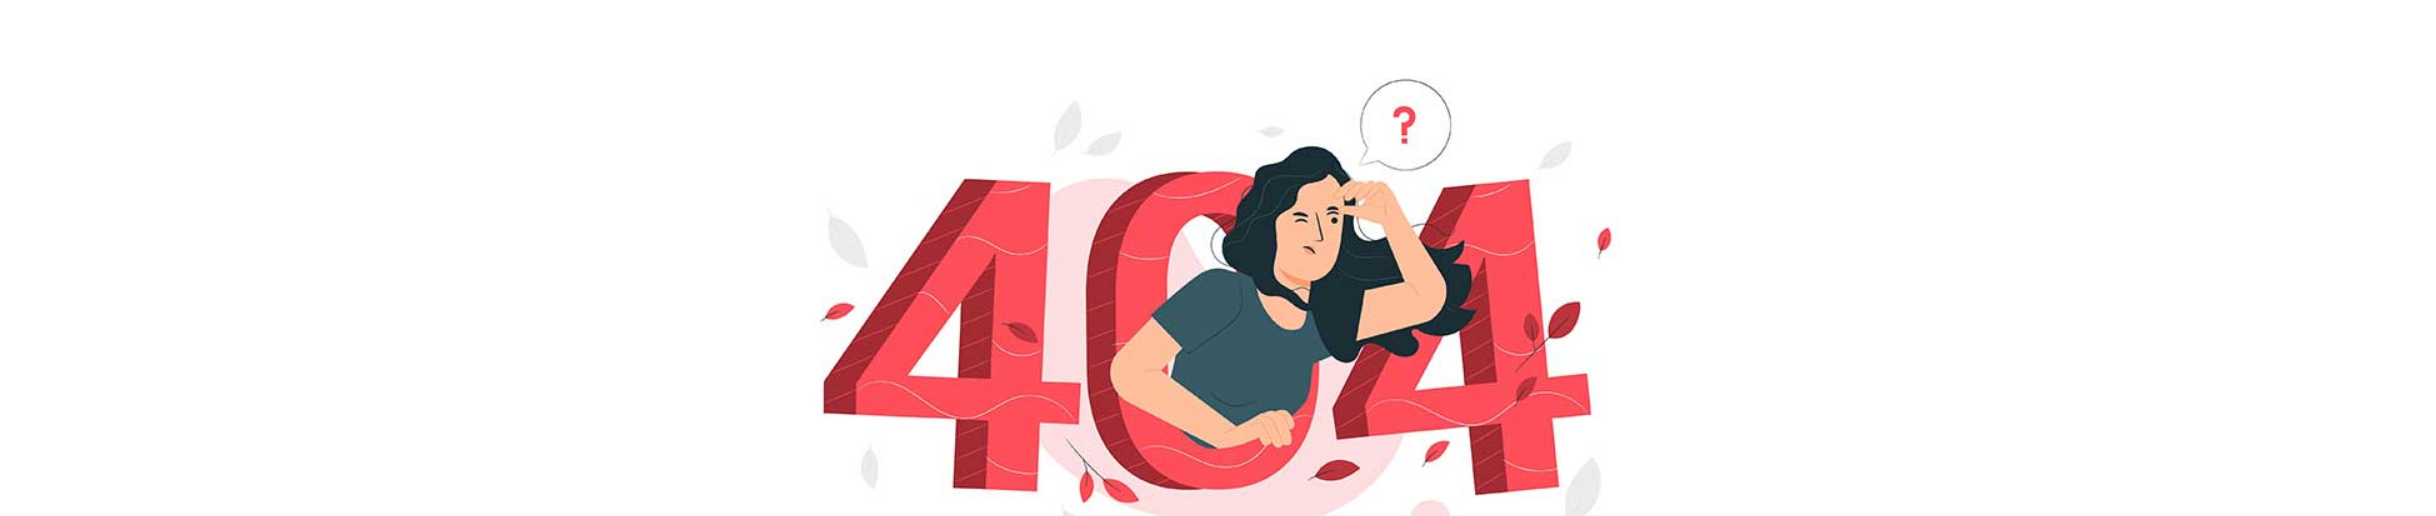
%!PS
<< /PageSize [2436 516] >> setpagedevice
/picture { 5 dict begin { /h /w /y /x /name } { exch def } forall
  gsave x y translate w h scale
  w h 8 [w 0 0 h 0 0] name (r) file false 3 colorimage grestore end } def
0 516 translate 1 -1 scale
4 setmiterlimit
1 setgray
0 0 2436 516 rectfill
(img1.rgb) 813 77 808 439 picture
showpage
